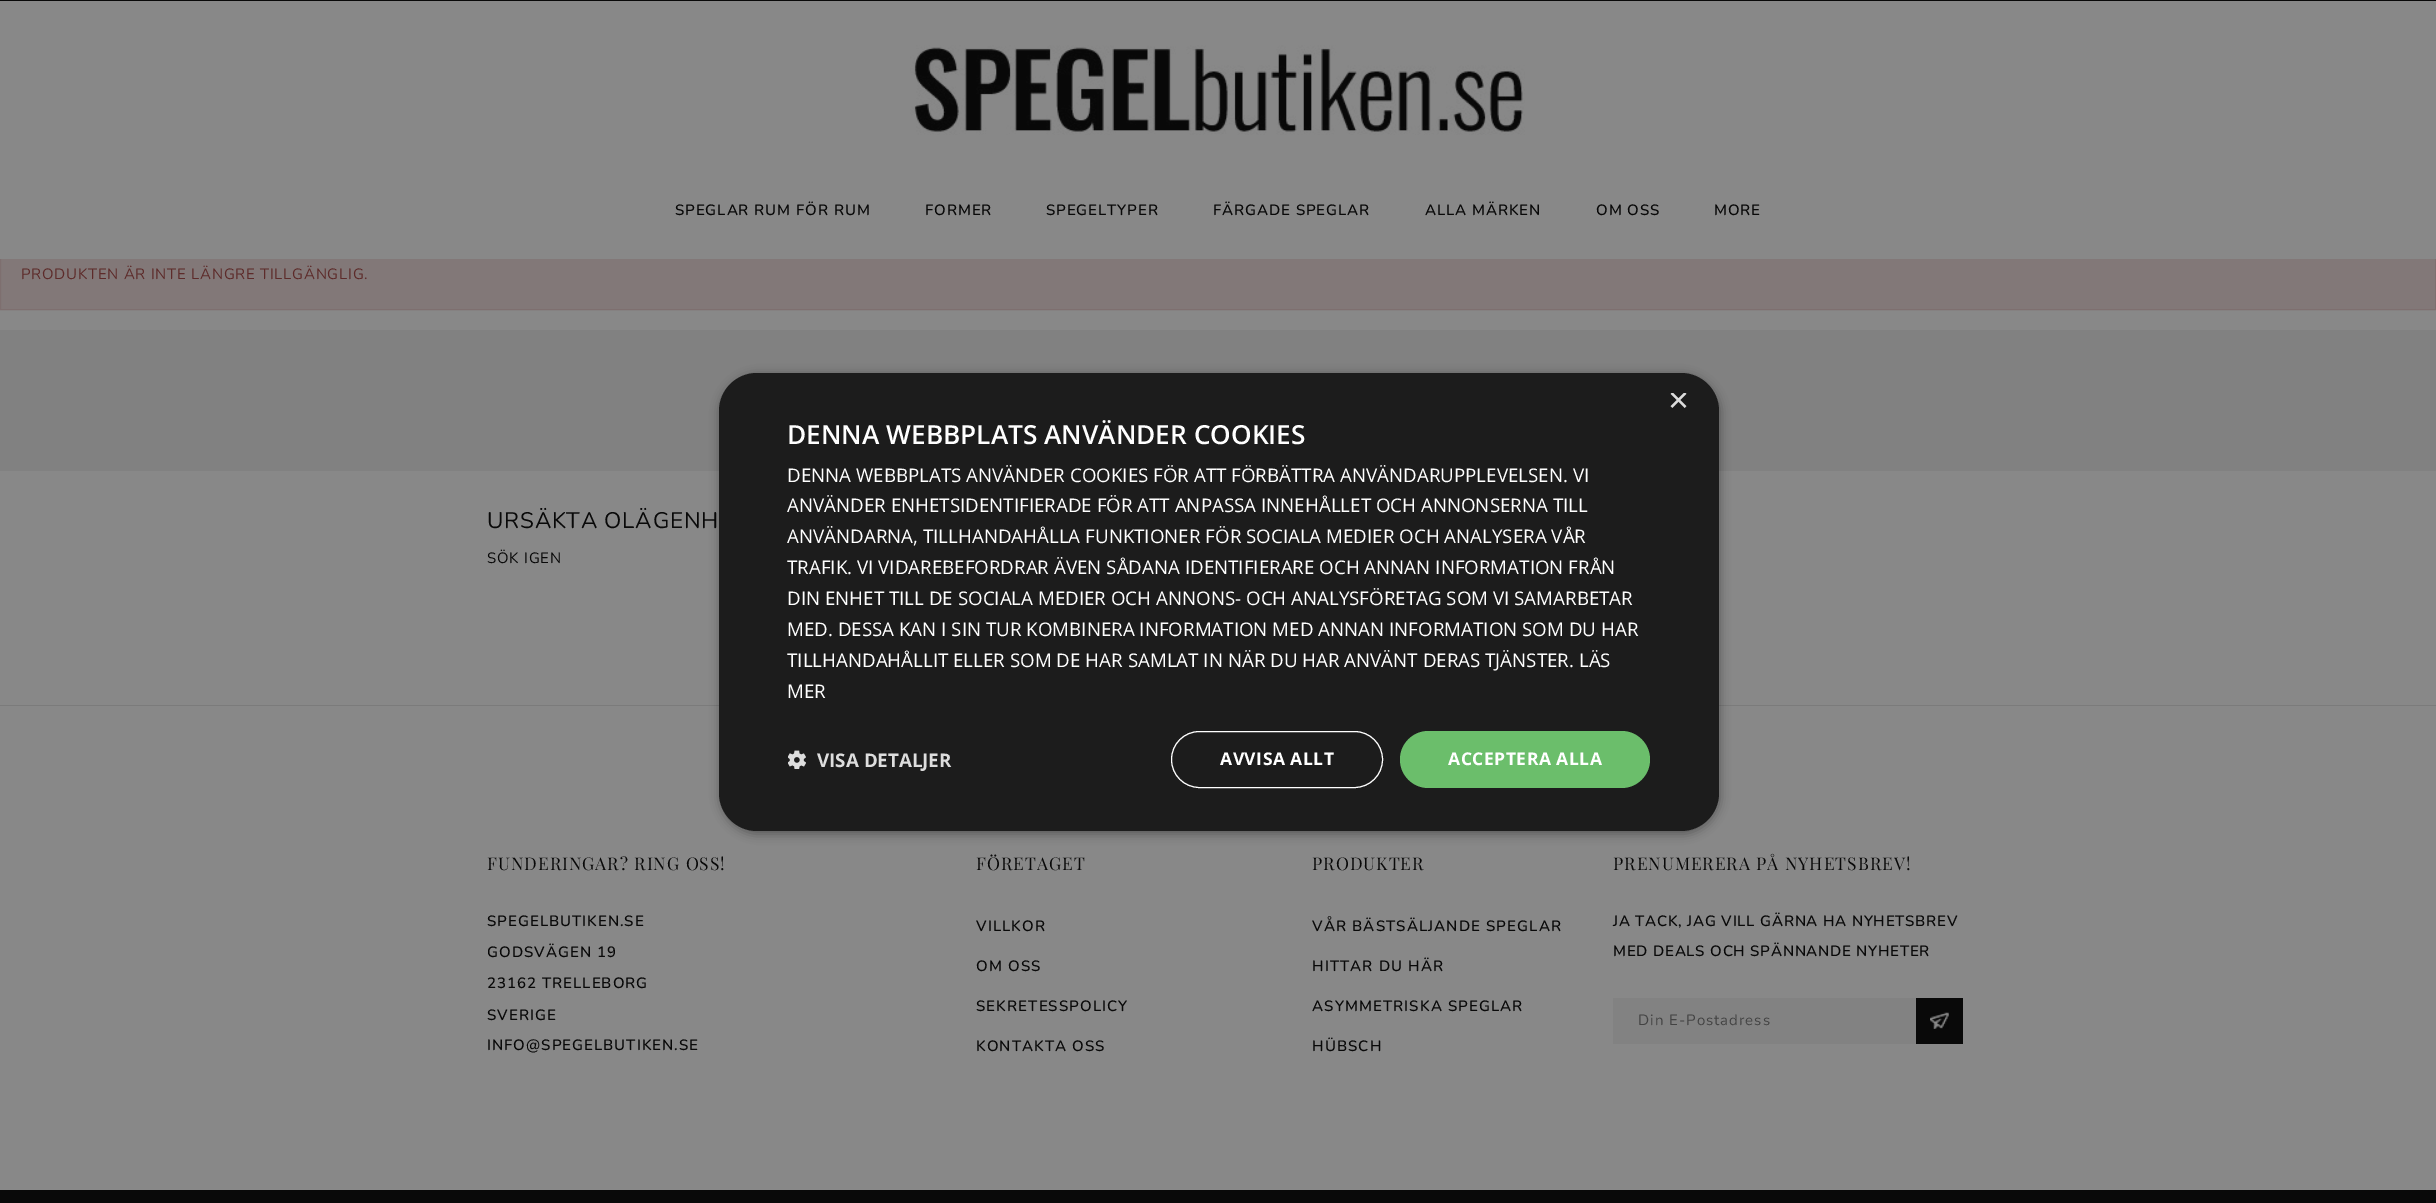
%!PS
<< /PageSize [2436 1203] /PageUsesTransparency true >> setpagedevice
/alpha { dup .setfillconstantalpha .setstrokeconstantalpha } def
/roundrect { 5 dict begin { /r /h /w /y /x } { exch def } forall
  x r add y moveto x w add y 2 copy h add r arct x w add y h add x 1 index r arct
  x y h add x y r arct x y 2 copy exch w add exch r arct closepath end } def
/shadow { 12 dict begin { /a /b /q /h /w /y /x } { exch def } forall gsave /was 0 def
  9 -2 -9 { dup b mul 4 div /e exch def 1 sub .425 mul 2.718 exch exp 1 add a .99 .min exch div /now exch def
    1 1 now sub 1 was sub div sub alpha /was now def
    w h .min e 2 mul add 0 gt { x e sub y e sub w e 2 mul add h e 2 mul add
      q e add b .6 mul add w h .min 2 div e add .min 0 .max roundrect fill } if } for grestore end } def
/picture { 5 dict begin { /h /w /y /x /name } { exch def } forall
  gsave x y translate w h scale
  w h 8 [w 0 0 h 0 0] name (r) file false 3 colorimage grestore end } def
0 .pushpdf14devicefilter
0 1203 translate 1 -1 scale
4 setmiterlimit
0.533 setgray
0 0 2436 1203 rectfill
0.51 0.471 0.471 setrgbcolor
1 259 2434 50 rectfill
0.494 0.435 0.435 setrgbcolor
0.5 -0.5 2435 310 rectstroke
0.533 setgray
0 1 2436 258 rectfill
0.035 setgray
0 0 2436 1 rectfill
(img1.rgb) 910 45 615 90 picture
/Nunito-SemiBold [15 0 0 -15 0 0] selectfont
675 215 moveto 0.9 0 (SPEGLAR RUM FÖR RUM) ashow
925 215 moveto 0.9 0 (FORMER) ashow
1046 215 moveto 0.9 0 (SPEGELTYPER) ashow
1213 215 moveto 0.9 0 (FÄRGADE SPEGLAR) ashow
1425 215 moveto 0.9 0 (ALLA MÄRKEN) ashow
1596 215 moveto 0.9 0 (OM OSS) ashow
1714 215 moveto 0.9 0 (MORE) ashow
/Nunito-Regular [15 0 0 -15 0 0] selectfont
0.365 0.169 0.165 setrgbcolor
21 279 moveto 0.75 0 (PRODUKTEN ÄR INTE LÄNGRE TILLGÄNGLIG.) ashow
0.506 setgray
0 330 2436 141 rectfill
/Nunito-Regular [22.5 0 0 -22.5 0 0] selectfont
0.035 setgray
487 528 moveto 0.75 0 (URSÄKTA OLÄGENH) ashow
/Nunito-Regular [15 0 0 -15 0 0] selectfont
487 563 moveto 0.75 0 (SÖK IGEN) ashow
0.482 setgray
0 705 2436 1 rectfill
/PlayfairDisplay-Regular [17.5 0 0 -17.5 0 0] selectfont
0.035 setgray
487 870 moveto 1 0 (FUNDERINGAR? RING OSS!) ashow
/Nunito-SemiBold [15 0 0 -15 0 0] selectfont
487 926 moveto 1 0 (SPEGELBUTIKEN.SE) ashow
gsave
488 850 438 209 rectclip
487 957 moveto 1 0 (GODSVÄGEN 19) ashow
grestore
487 988 moveto 1 0 (23162 TRELLEBORG) ashow
487 1020 moveto 1 0 (SVERIGE) ashow
487 1050 moveto 1 0 (INFO@SPEGELBUTIKEN.SE) ashow
/PlayfairDisplay-Regular [17.5 0 0 -17.5 0 0] selectfont
976 870 moveto 1 0 (FÖRETAGET) ashow
/Nunito-SemiBold [15 0 0 -15 0 0] selectfont
976 931 moveto 1.1 0 (VILLKOR) ashow
976 971 moveto 1.1 0 (OM OSS) ashow
976 1011 moveto 1.1 0 (SEKRETESSPOLICY) ashow
976 1051 moveto 1.1 0 (KONTAKTA OSS) ashow
/PlayfairDisplay-Regular [17.5 0 0 -17.5 0 0] selectfont
1312 870 moveto 1 0 (PRODUKTER) ashow
/Nunito-SemiBold [15 0 0 -15 0 0] selectfont
1312 931 moveto 1.1 0 (VÅR BÄSTSÄLJANDE SPEGLAR) ashow
1312 971 moveto 1.1 0 (HITTAR DU HÄR) ashow
1312 1011 moveto 1.1 0 (ASYMMETRISKA SPEGLAR) ashow
1312 1051 moveto 1.1 0 (HÜBSCH) ashow
/PlayfairDisplay-Regular [17.5 0 0 -17.5 0 0] selectfont
1613 870 moveto 1 0 (PRENUMERERA PÅ NYHETSBREV!) ashow
/Nunito-SemiBold [15 0 0 -15 0 0] selectfont
1613 926 moveto 0.75 0 (JA TACK, JAG VILL GÄRNA HA NYHETSBREV) ashow
1613 956 moveto 0.75 0 (MED DEALS OCH SPÄNNANDE NYHETER) ashow
0.51 setgray
1613 998 303 46 rectfill
/Nunito-Regular [15 0 0 -15 0 0] selectfont
0.263 setgray
1638 1025 moveto 1 0 (Din E-Postadress) ashow
0.035 setgray
1916 998 47 46 rectfill
(img2.rgb) 1930 1012 19 17 picture
0 1190 2436 13 rectfill
0 setgray
720 375 1000 459 38 5 0.35 shadow
0.11 setgray
719 373 1000 458 38 roundrect fill
gsave
1669 393 19 18 rectclip
/LiberationSans-Regular [36 0 0 -36 0 0] selectfont
0.867 setgray
1668 412 moveto (×) show
grestore
/OpenSans-SemiBold [26.25 0 0 -26.25 0 0] selectfont
1 setgray
787 444 moveto (DENNA WEBBPLATS ANVÄNDER COOKIES) show
/OpenSans-Regular [18.75 0 0 -18.75 0 0] selectfont
787 482 moveto (DENNA WEBBPLATS ANVÄNDER COOKIES FÖR ATT FÖRBÄTTRA ANVÄNDARUPPLEVELSEN. VI) show
787 512 moveto (ANVÄNDER ENHETSIDENTIFIERADE FÖR ATT ANPASSA INNEHÅLLET OCH ANNONSERNA TILL) show
787 543 moveto (ANVÄNDARNA, TILLHANDAHÅLLA FUNKTIONER FÖR SOCIALA MEDIER OCH ANALYSERA VÅR) show
787 574 moveto (TRAFIK. VI VIDAREBEFORDRAR ÄVEN SÅDANA IDENTIFIERARE OCH ANNAN INFORMATION FRÅN) show
787 605 moveto (DIN ENHET TILL DE SOCIALA MEDIER OCH ANNONS- OCH ANALYSFÖRETAG SOM VI SAMARBETAR) show
787 636 moveto (MED. DESSA KAN I SIN TUR KOMBINERA INFORMATION MED ANNAN INFORMATION SOM DU HAR) show
787 667 moveto (TILLHANDAHÅLLIT ELLER SOM DE HAR SAMLAT IN NÄR DU HAR ANVÄNT DERAS TJÄNSTER. LÄS) show
787 698 moveto (MER) show
(img3.rgb) 788 750 18 19 picture
/OpenSans-Bold [18.75 0 0 -18.75 0 0] selectfont
0.867 setgray
817 767 moveto (VISA DETALJER) show
1 setgray
1171.5 731.5 211 56 28 roundrect stroke
/OpenSans-Bold [17.5 0 0 -17.5 0 0] selectfont
1220 765 moveto 0.5 0 (AVVISA ALLT) ashow
0.42 0.745 0.42 setrgbcolor
1400 731 250 57 28.5 roundrect fill
1 setgray
1448 765 moveto 0.5 0 (ACCEPTERA ALLA) ashow
.poppdf14devicefilter showpage
